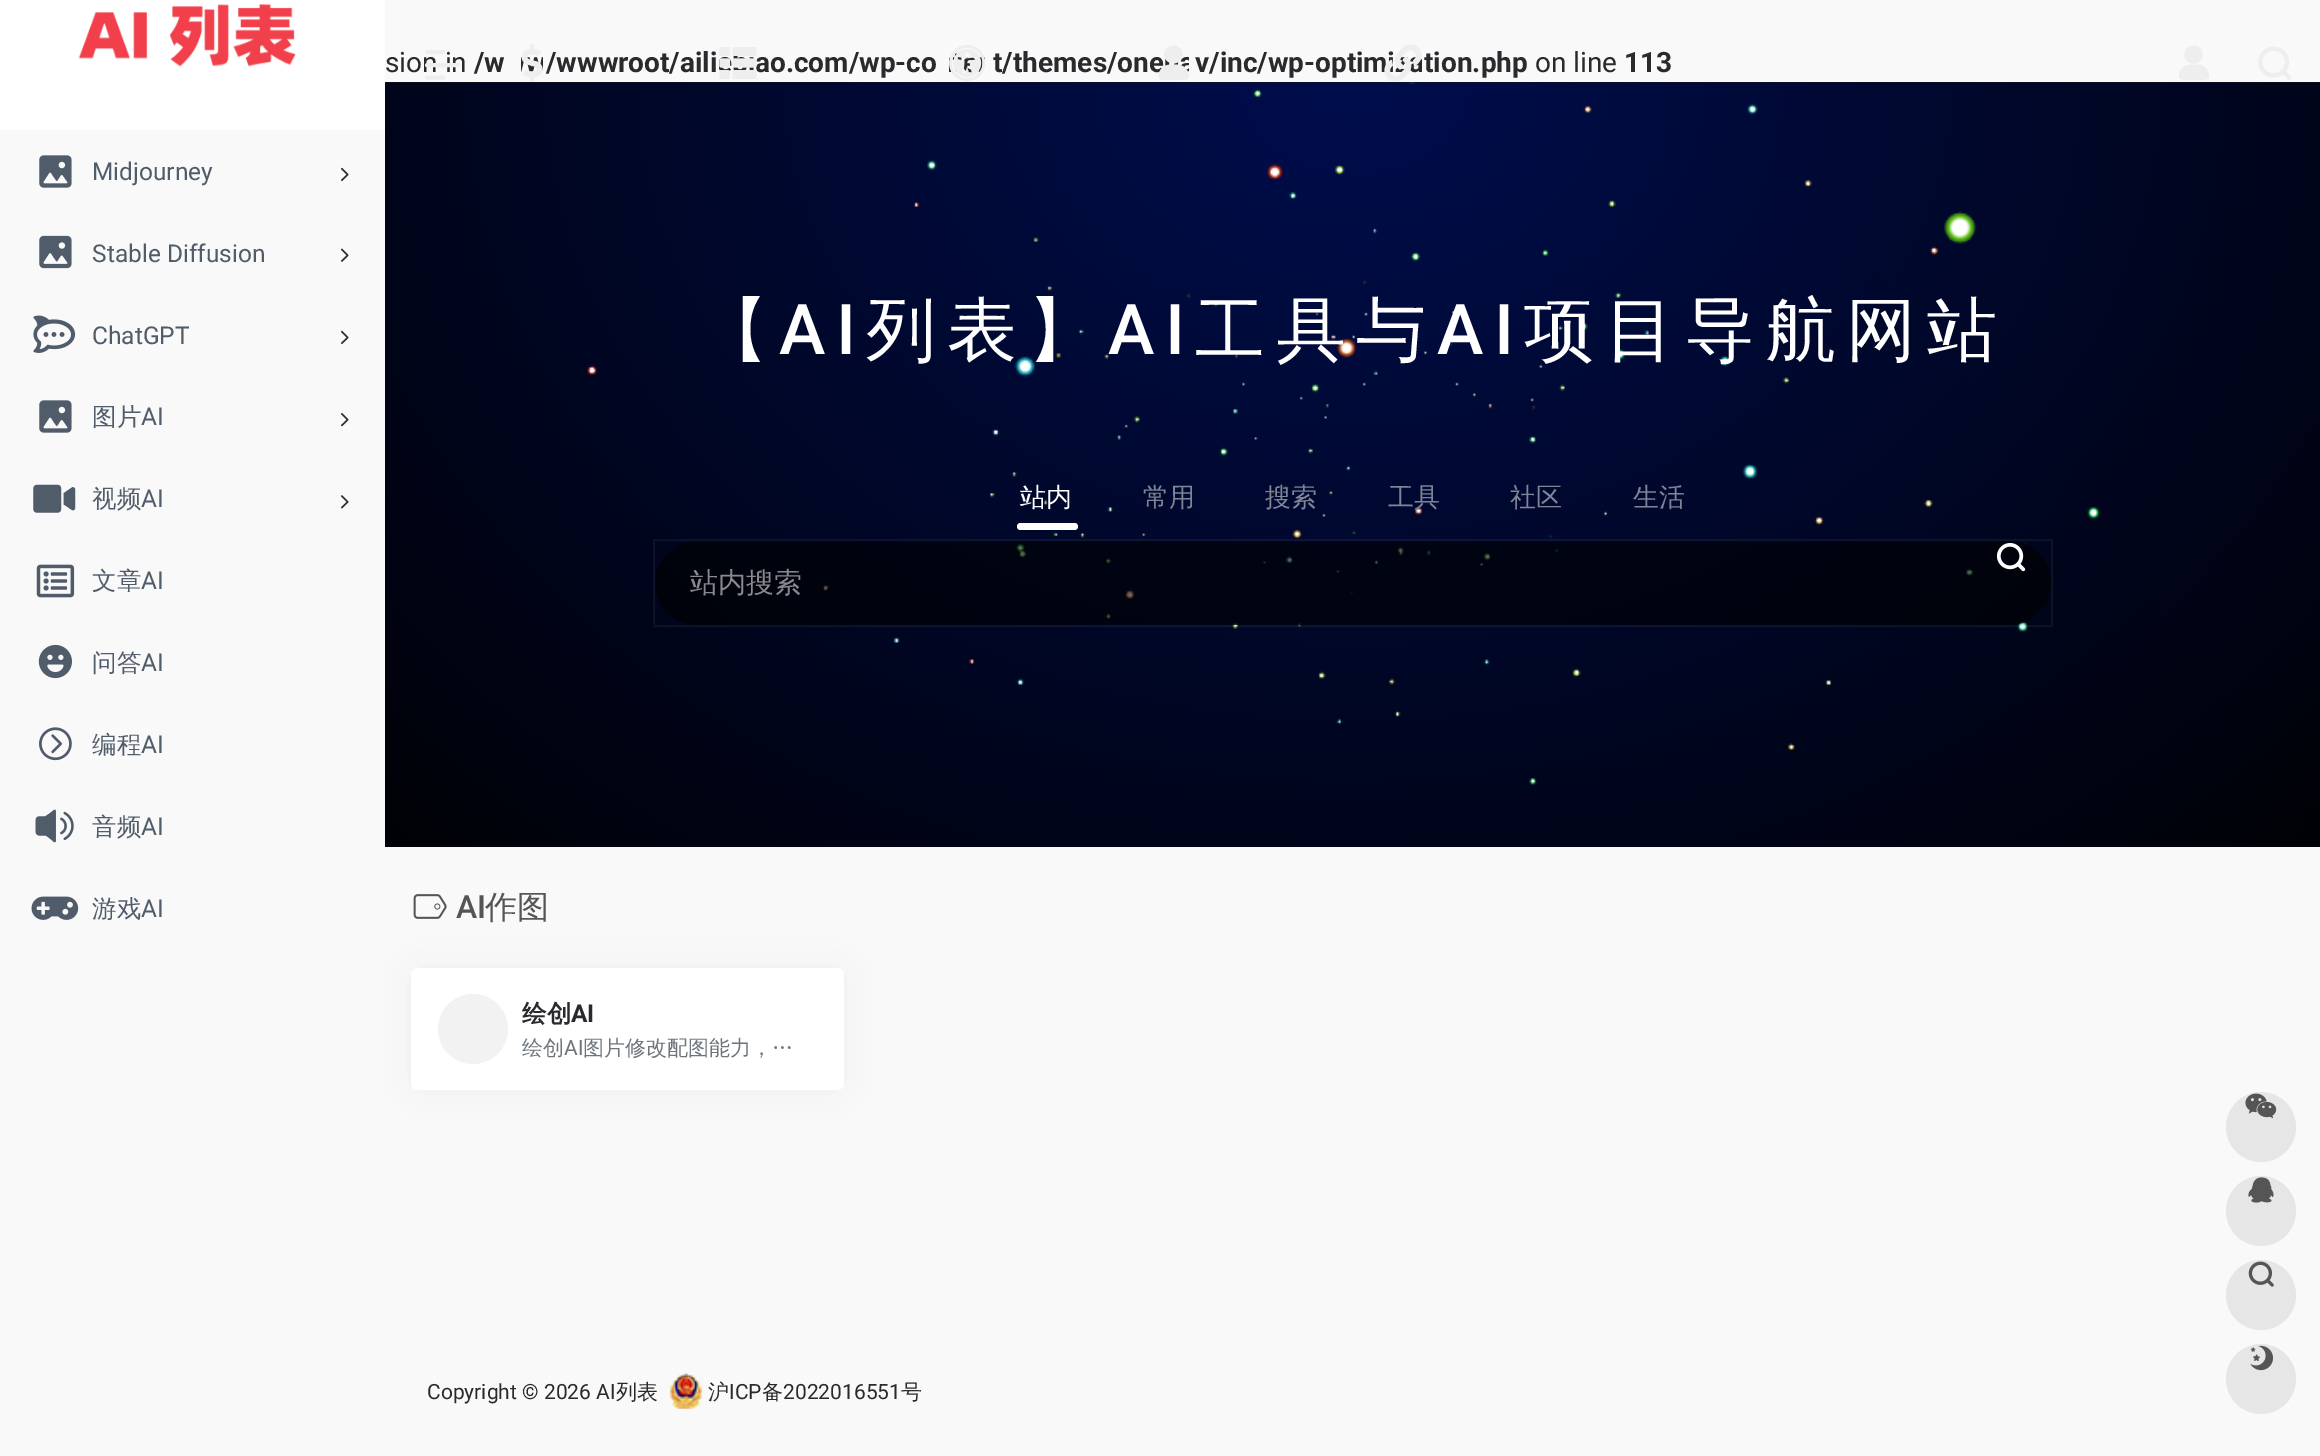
%!PS
<< /PageSize [2320 1456] /PageUsesTransparency true >> setpagedevice
/alpha { dup .setfillconstantalpha .setstrokeconstantalpha } def
/roundrect { 5 dict begin { /r /h /w /y /x } { exch def } forall
  x r add y moveto x w add y 2 copy h add r arct x w add y h add x 1 index r arct
  x y h add x y r arct x y 2 copy exch w add exch r arct closepath end } def
/shadow { 12 dict begin { /a /b /q /h /w /y /x } { exch def } forall gsave /was 0 def
  9 -2 -9 { dup b mul 4 div /e exch def 1 sub .425 mul 2.718 exch exp 1 add a .99 .min exch div /now exch def
    1 1 now sub 1 was sub div sub alpha /was now def
    w h .min e 2 mul add 0 gt { x e sub y e sub w e 2 mul add h e 2 mul add
      q e add b .6 mul add w h .min 2 div e add .min 0 .max roundrect fill } if } for grestore end } def
/picture { 5 dict begin { /h /w /y /x /name } { exch def } forall
  gsave x y translate w h scale
  w h 8 [w 0 0 h 0 0] name (r) file false 3 colorimage grestore end } def
0 .pushpdf14devicefilter
0 1456 translate 1 -1 scale
4 setmiterlimit
0.976 setgray
0 0 2320 1456 rectfill
/Roboto-Regular [28 0 0 -28 0 0] selectfont
0.157 0.165 0.176 setrgbcolor
385 72 moveto (sion in) show
/Roboto-Bold [28 0 0 -28 0 0] selectfont
474 72 moveto (/w) show
546 72 moveto (/wwwroot/aili) show
755 72 moveto (ao.com/wp-co) show
993 72 moveto (t/themes/one) show
1195 72 moveto (v/inc/wp-optim) show
1424 72 moveto (tion.php) show
/Roboto-Regular [28 0 0 -28 0 0] selectfont
1535 72 moveto (on line) show
/Roboto-Bold [28 0 0 -28 0 0] selectfont
1624 72 moveto (113) show
1 setgray
0 0 385 130 rectfill
(img1.rgb) 78 4 218 63 picture
(img2.rgb) 39 155 33 33 picture
/Roboto-Regular [24.5 0 0 -24.5 0 0] selectfont
0.318 0.361 0.42 setrgbcolor
92 180 moveto (Midjourney) show
(img3.rgb) 341 167 8 14 picture
(img4.rgb) 39 235 33 34 picture
92 262 moveto (Stable Diffusion) show
(img5.rgb) 341 248 8 14 picture
(img6.rgb) 33 315 43 38 picture
92 344 moveto (ChatGPT) show
(img7.rgb) 341 330 8 14 picture
(img2.rgb) 39 400 33 33 picture
/WenQuanYiZenHei-Medium [24.5 0 0 -24.5 0 0] selectfont
92 425 moveto (图片) show
/Roboto-Regular [24.5 0 0 -24.5 0 0] selectfont
141 425 moveto (AI) show
(img8.rgb) 341 413 8 14 picture
(img9.rgb) 33 484 43 29 picture
/WenQuanYiZenHei-Medium [24.5 0 0 -24.5 0 0] selectfont
92 507 moveto (视频) show
/Roboto-Regular [24.5 0 0 -24.5 0 0] selectfont
141 507 moveto (AI) show
(img10.rgb) 341 495 8 14 picture
(img11.rgb) 36 564 39 34 picture
/WenQuanYiZenHei-Medium [24.5 0 0 -24.5 0 0] selectfont
92 589 moveto (文章) show
/Roboto-Regular [24.5 0 0 -24.5 0 0] selectfont
141 589 moveto (AI) show
(img12.rgb) 38 644 34 35 picture
/WenQuanYiZenHei-Medium [24.5 0 0 -24.5 0 0] selectfont
92 671 moveto (问答) show
/Roboto-Regular [24.5 0 0 -24.5 0 0] selectfont
141 671 moveto (AI) show
(img13.rgb) 39 727 33 34 picture
/WenQuanYiZenHei-Medium [24.5 0 0 -24.5 0 0] selectfont
92 753 moveto (编程) show
/Roboto-Regular [24.5 0 0 -24.5 0 0] selectfont
141 753 moveto (AI) show
(img14.rgb) 35 809 39 34 picture
/WenQuanYiZenHei-Medium [24.5 0 0 -24.5 0 0] selectfont
92 835 moveto (音频) show
/Roboto-Regular [24.5 0 0 -24.5 0 0] selectfont
141 835 moveto (AI) show
(img15.rgb) 31 896 48 24 picture
/WenQuanYiZenHei-Medium [24.5 0 0 -24.5 0 0] selectfont
92 917 moveto (游戏) show
/Roboto-Regular [24.5 0 0 -24.5 0 0] selectfont
141 917 moveto (AI) show
0.933 setgray
3.9 setlinewidth
1 setlinecap
1 setlinejoin
newpath 427 52 moveto 443.5 52 lineto 427 65 moveto 458.5 65 lineto 427 77.5 moveto 443.5 77.5 lineto stroke
(img16.rgb) 521 44 22 38 picture
(img17.rgb) 719 47 38 32 picture
(img18.rgb) 949 45 36 36 picture
(img19.rgb) 1158 45 31 35 picture
(img20.rgb) 1384 44 38 38 picture
(img21.rgb) 2179 45 30 35 picture
(img22.rgb) 2258 46 34 34 picture
0.106 0.114 0.122 setrgbcolor
385 82 1935 1 rectfill
(img23.rgb) 385 82 1935 765 picture
/WenQuanYiZenHei-Medium [70 0 0 -70 0 0] selectfont
1 setgray
699 354 moveto 10.5 0 (【) ashow
/Roboto-Medium [70 0 0 -70 0 0] selectfont
779 354 moveto 10.5 0 (AI) ashow
/WenQuanYiZenHei-Medium [70 0 0 -70 0 0] selectfont
866 354 moveto 10.5 0 (列表】) ashow
/Roboto-Medium [70 0 0 -70 0 0] selectfont
1108 354 moveto 10.5 0 (AI) ashow
/WenQuanYiZenHei-Medium [70 0 0 -70 0 0] selectfont
1195 354 moveto 10.5 0 (工具与) ashow
/Roboto-Medium [70 0 0 -70 0 0] selectfont
1437 354 moveto 10.5 0 (AI) ashow
/WenQuanYiZenHei-Medium [70 0 0 -70 0 0] selectfont
1524 354 moveto 10.5 0 (项目导航网站) ashow
/WenQuanYiZenHei-Medium [26 0 0 -26 0 0] selectfont
1020 506 moveto (站内) show
0.502 0.518 0.592 setrgbcolor
1143 506 moveto (常用) show
1265 506 moveto (搜索) show
1388 506 moveto (工具) show
1510 506 moveto (社区) show
1633 506 moveto (生活) show
1 setgray
1017 523 61 7 3.5 roundrect fill
0.6 alpha
0 setgray
655 541 1396 84 42 roundrect fill
0.05 alpha
1 setgray
2 setlinewidth
0 setlinecap
0 setlinejoin
654 540 1398 86 rectstroke
1 alpha
(img24.rgb) 1996 543 30 29 picture
gsave
690 565 1326 37 rectclip
/WenQuanYiZenHei-Medium [28 0 0 -28 0 0] selectfont
0.533 0.541 0.561 setrgbcolor
690 592 moveto (站内搜索) show
grestore
(img25.rgb) 413 894 34 25 picture
/Roboto-Medium [32 0 0 -32 0 0] selectfont
0.333 setgray
456 918 moveto (AI) show
/WenQuanYiZenHei-Medium [32 0 0 -32 0 0] selectfont
485 918 moveto (作图) show
0.62 setgray
420 977 415 105 0 17.5 0.2 shadow
1 setgray
411 968 433 122 7 roundrect fill
0.949 setgray
newpath 473 1029 35 0 360 arc closepath fill
/WenQuanYiZenHei-Bold [24.5 0 0 -24.5 0 0] selectfont
0.157 0.165 0.176 setrgbcolor
522 1022 moveto (绘创) show
/Roboto-Bold [24.5 0 0 -24.5 0 0] selectfont
571 1022 moveto (AI) show
/WenQuanYiZenHei-Medium [21 0 0 -21 0 0] selectfont
0.424 0.459 0.49 setrgbcolor
522 1055 moveto (绘创) show
/Roboto-Regular [21 0 0 -21 0 0] selectfont
564 1055 moveto (AI) show
/WenQuanYiZenHei-Medium [21 0 0 -21 0 0] selectfont
583 1055 moveto (图片修改配图能力，…) show
/Roboto-Regular [21 0 0 -21 0 0] selectfont
0.157 0.165 0.176 setrgbcolor
427 1399 moveto (Copyright © 2026 AI) show
/WenQuanYiZenHei-Medium [21 0 0 -21 0 0] selectfont
616 1399 moveto (列表) show
(img26.rgb) 669 1373 34 36 picture
708 1399 moveto (沪) show
/Roboto-Regular [21 0 0 -21 0 0] selectfont
729 1399 moveto (ICP) show
/WenQuanYiZenHei-Medium [21 0 0 -21 0 0] selectfont
762 1399 moveto (备) show
/Roboto-Regular [21 0 0 -21 0 0] selectfont
783 1399 moveto (2022016551) show
/WenQuanYiZenHei-Medium [21 0 0 -21 0 0] selectfont
901 1399 moveto (号) show
0.902 setgray
newpath 2261 1127 35 0 360 arc closepath fill
(img27.rgb) 2245 1093 32 26 picture
newpath 2261 1211 35 0 360 arc closepath fill
(img28.rgb) 2248 1177 26 26 picture
newpath 2261 1295 35 0 360 arc closepath fill
(img29.rgb) 2248 1261 26 26 picture
newpath 2261 1379 35 0 360 arc closepath fill
(img30.rgb) 2250 1345 23 26 picture
.poppdf14devicefilter showpage
